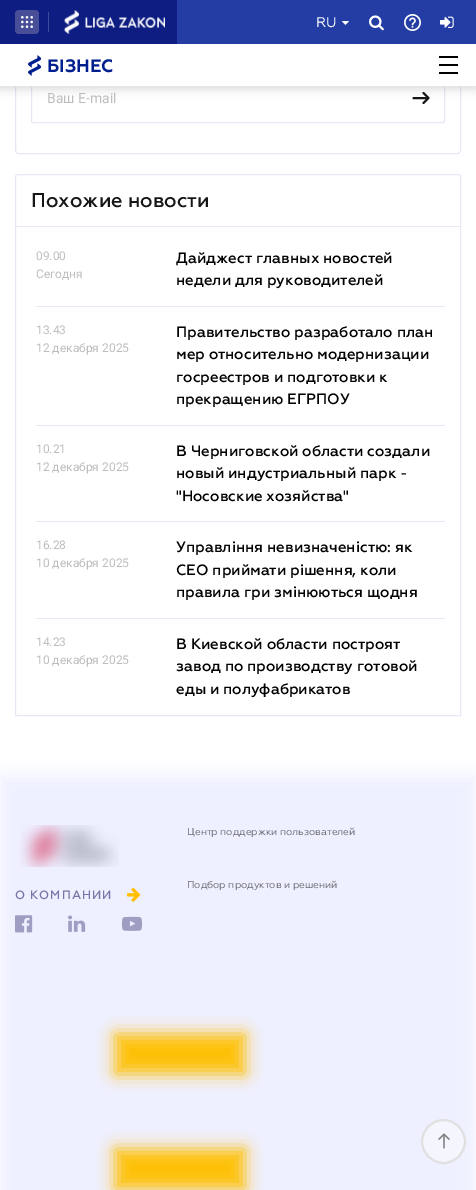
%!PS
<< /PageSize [476 1190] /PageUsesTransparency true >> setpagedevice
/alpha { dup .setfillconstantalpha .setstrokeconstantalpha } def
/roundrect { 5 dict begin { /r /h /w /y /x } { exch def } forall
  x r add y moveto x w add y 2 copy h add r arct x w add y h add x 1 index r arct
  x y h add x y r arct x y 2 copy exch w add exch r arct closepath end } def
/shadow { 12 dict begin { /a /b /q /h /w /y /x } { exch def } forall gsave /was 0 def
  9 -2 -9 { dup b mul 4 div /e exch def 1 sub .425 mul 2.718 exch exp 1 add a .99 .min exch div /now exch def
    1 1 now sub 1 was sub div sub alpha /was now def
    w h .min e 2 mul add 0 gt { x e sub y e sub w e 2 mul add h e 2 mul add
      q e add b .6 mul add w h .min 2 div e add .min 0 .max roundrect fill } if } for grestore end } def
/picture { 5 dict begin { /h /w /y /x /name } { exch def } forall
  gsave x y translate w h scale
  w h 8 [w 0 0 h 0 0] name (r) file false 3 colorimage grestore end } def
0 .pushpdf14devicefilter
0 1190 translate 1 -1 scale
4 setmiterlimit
1 setgray
0 0 476 1190 rectfill
0.902 0.91 0.969 setrgbcolor
15.5 -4.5 445 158 3.5 roundrect stroke
31.5 73.5 413 49 1.5 roundrect stroke
0.086 setgray
1.9 setlinewidth
1 setlinecap
1 setlinejoin
newpath 428.5 98 moveto 413.5 98 lineto 428.5 98 moveto 423.5 93 lineto 428.5 98 moveto 423.5 103 lineto stroke
0 setgray
0 46 476 43 0 5 0.15 shadow
0.141 0.239 0.643 setrgbcolor
177 0 299 44 rectfill
0.055 0.114 0.51 setrgbcolor
0 0 177 44 rectfill
0.282 0.31 0.596 setrgbcolor
15 10 24 24 4 roundrect fill
(img1.rgb) 21 16 12 12 picture
0.243 0.29 0.608 setrgbcolor
48 12 1 20 rectfill
(img2.rgb) 64 10 101 24 picture
/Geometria-Regular [14 0 0 -14 0 0] selectfont
1 setgray
316 27 moveto (RU) show
(img3.rgb) 342 21 7 4 picture
(img4.rgb) 369 15 15 16 picture
(img5.rgb) 404 14 17 17 picture
(img6.rgb) 440 16 14 12 picture
0 44 476 42 rectfill
0.902 setgray
0 86 476 1 rectfill
(img7.rgb) 28 55 14 21 picture
/Geometria-Bold [18 0 0 -18 0 0] selectfont
0 0.122 0.557 setrgbcolor
47 72 moveto (БІЗНЕС) show
0 setgray
439 56 19 2 rectfill
439 64 19 2 rectfill
439 72 19 2 rectfill
/Roboto-Regular [14 0 0 -14 0 0] selectfont
0.741 setgray
47 103 moveto (Ваш E-mail) show
0.902 0.91 0.969 setrgbcolor
1 setlinewidth
0 setlinecap
0 setlinejoin
newpath 18 174.5 moveto 458 174.5 lineto 459.5 174.5 460.5 175.5 460.5 177 curveto 460.5 715.5 lineto 15.5 715.5 lineto 15.5 177 lineto 15.5 175.5 16.5 174.5 18 174.5 curveto closepath stroke
16 226 444 1 rectfill
/Geometria-Medium [20 0 0 -20 0 0] selectfont
0.086 setgray
31 207 moveto (Похожие новости) show
0.902 0.91 0.969 setrgbcolor
36 306 409 1 rectfill
/Roboto-Regular [12 0 0 -12 0 0] selectfont
0.741 setgray
36 260 moveto (09.00) show
36 278 moveto (Сегодня) show
/Geometria-Medium [15 0 0 -15 0 0] selectfont
0 setgray
176 263 moveto (Дайджест главных новостей) show
176 285 moveto (недели для руководителей) show
0.902 0.91 0.969 setrgbcolor
36 425 409 1 rectfill
/Roboto-Regular [12 0 0 -12 0 0] selectfont
0.741 setgray
36 334 moveto (13.43) show
36 352 moveto (12 декабря 2025) show
/Geometria-Medium [15 0 0 -15 0 0] selectfont
0 setgray
176 337 moveto (Правительство разработало план) show
176 359 moveto (мер относительно модернизации) show
176 382 moveto (госреестров и подготовки к) show
176 404 moveto (прекращению ЕГРПОУ) show
0.902 0.91 0.969 setrgbcolor
36 521 409 1 rectfill
/Roboto-Regular [12 0 0 -12 0 0] selectfont
0.741 setgray
36 453 moveto (10.21) show
36 471 moveto (12 декабря 2025) show
/Geometria-Medium [15 0 0 -15 0 0] selectfont
0 setgray
176 456 moveto (В Черниговской области создали) show
176 478 moveto (новый индустриальный парк -) show
176 501 moveto ("Носовские хозяйства") show
0.902 0.91 0.969 setrgbcolor
36 618 409 1 rectfill
/Roboto-Regular [12 0 0 -12 0 0] selectfont
0.741 setgray
36 549 moveto (16.28) show
36 567 moveto (10 декабря 2025) show
/Geometria-Medium [15 0 0 -15 0 0] selectfont
0 setgray
176 552 moveto (Управління невизначеністю: як) show
176 575 moveto (СЕО приймати рішення, коли) show
176 597 moveto (правила гри змінюються щодня) show
/Roboto-Regular [12 0 0 -12 0 0] selectfont
0.741 setgray
36 646 moveto (14.23) show
36 664 moveto (10 декабря 2025) show
/Geometria-Medium [15 0 0 -15 0 0] selectfont
0 setgray
176 649 moveto (В Киевской области построят) show
176 671 moveto (завод по производству готовой) show
176 694 moveto (еды и полуфабрикатов) show
0.929 0.937 1 setrgbcolor
0 776 476 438 0 8 1 shadow
/Geometria-Regular [10 0 0 -10 0 0] selectfont
0.42 0.424 0.451 setrgbcolor
187 835 moveto (Центр поддержки пользователей) show
187 888 moveto (Подбор продуктов и решений) show
(img8.rgb) 20 825 99 42 picture
/Geometria-Medium [12 0 0 -12 0 0] selectfont
0.471 0.459 0.659 setrgbcolor
15 899 moveto 1 0 (О КОМПАНИИ) ashow
(img9.rgb) 127 887 14 15 picture
(img10.rgb) 15 915 18 18 picture
(img11.rgb) 68 915 18 17 picture
(img12.rgb) 122 916 20 15 picture
1 0.749 0 setrgbcolor
115 1034 130 40 0 8 1 shadow
115 1149 130 40 0 8 1 shadow
0.957 0.961 0.992 setrgbcolor
newpath 443.5 1141.5 21.5 0 360 arc closepath gsave fill grestore
0.878 setgray
2 setlinewidth
stroke
(img13.rgb) 438 1133 12 16 picture
.poppdf14devicefilter showpage
